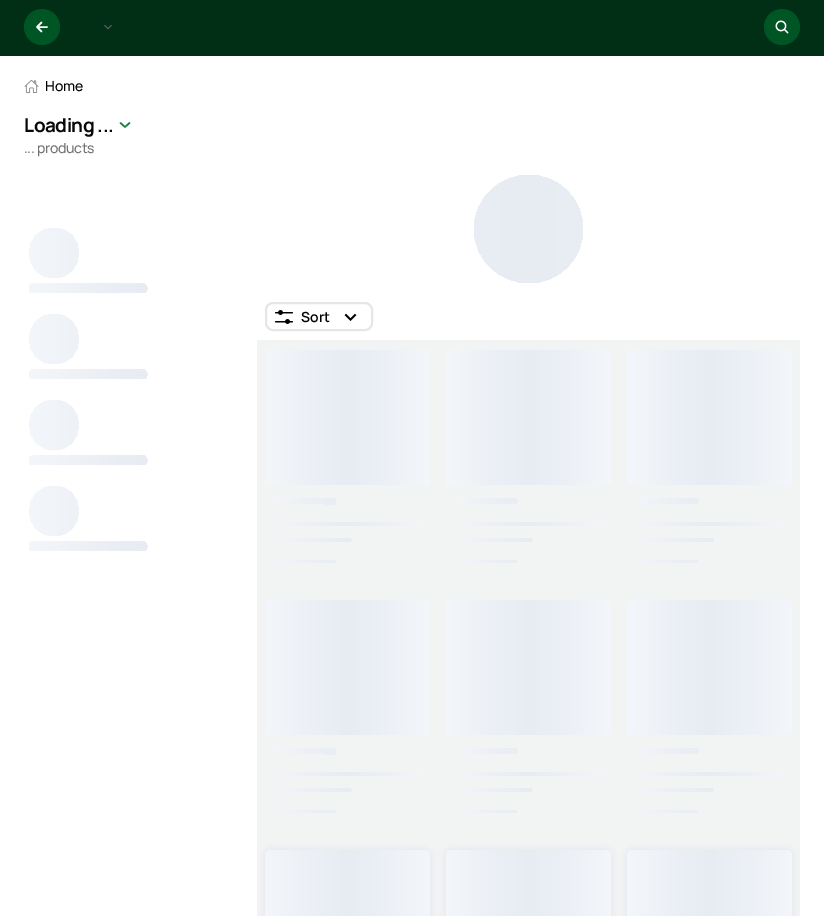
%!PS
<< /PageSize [824 916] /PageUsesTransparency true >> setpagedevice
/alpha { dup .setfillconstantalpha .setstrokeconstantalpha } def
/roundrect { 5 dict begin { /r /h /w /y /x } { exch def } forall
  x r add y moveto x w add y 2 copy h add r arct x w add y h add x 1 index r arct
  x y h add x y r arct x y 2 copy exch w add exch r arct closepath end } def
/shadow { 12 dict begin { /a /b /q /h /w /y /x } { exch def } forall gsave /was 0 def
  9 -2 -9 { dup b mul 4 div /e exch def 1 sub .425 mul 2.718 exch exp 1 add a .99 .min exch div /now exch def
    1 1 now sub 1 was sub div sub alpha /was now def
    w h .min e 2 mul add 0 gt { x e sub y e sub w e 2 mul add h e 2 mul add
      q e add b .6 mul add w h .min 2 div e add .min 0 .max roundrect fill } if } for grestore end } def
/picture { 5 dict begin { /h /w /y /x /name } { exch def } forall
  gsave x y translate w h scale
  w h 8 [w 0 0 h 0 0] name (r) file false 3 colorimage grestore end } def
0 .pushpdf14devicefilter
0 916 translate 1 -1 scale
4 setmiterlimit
1 setgray
0 0 824 916 rectfill
0 0.184 0.082 setrgbcolor
0 0 824 56 rectfill
0 0.333 0.141 setrgbcolor
newpath 42 27 18 0 360 arc closepath fill
1 setgray
1.5 setlinewidth
1 setlinecap
1 setlinejoin
newpath 41.5 31.5 moveto 37 27 lineto 41.5 22.5 lineto 38 27 moveto 47 27 lineto stroke
(img1.rgb) 104 24 8 6 picture
0 0.333 0.141 setrgbcolor
newpath 782 27 18 0 360 arc closepath fill
(img2.rgb) 775 20 14 14 picture
(img3.rgb) 24 80 15 14 picture
/Manrope-Medium [14 0 0 -14 0 0] selectfont
0 setgray
45 91 moveto (Home) show
/Manrope-Bold [19 0 0 -19 0 0] selectfont
0.035 0.035 0.043 setrgbcolor
24 132 moveto -0.5 0 (Loading ...) ashow
0.082 0.502 0.239 setrgbcolor
newpath 120.5 123 moveto 125 127 lineto 129.5 123 lineto stroke
/Manrope-Medium [14 0 0 -14 0 0] selectfont
0.451 setgray
24 153 moveto -0.3 0 (... products) ashow
gsave newpath 54 228 moveto 87 228 87 278 54 278 curveto 21 278 21 228 54 228 curveto closepath 34 283 moveto 28 283 27 292 33 293 curveto 142 293 lineto 143 293 145 292 146 292 curveto 149 288 146 283 142 283 curveto closepath eoclip newpath
<< /ShadingType 2 /ColorSpace /DeviceRGB /Coords [29 228 252 228] /Extend [true true] /Function << /FunctionType 3 /Domain [0 1] /Functions [<< /FunctionType 2 /Domain [0 1] /C0 [0.953 0.965 0.98] /C1 [0.906 0.925 0.953] /N 1 >> << /FunctionType 2 /Domain [0 1] /C0 [0.906 0.925 0.953] /C1 [0.953 0.965 0.98] /N 1 >>] /Bounds [0.5] /Encode [0 1 0 1] >> >> shfill grestore
gsave newpath 54 314 moveto 87 314 87 364 54 364 curveto 21 364 21 314 54 314 curveto closepath 34 369 moveto 28 369 27 378 33 379 curveto 142 379 lineto 143 379 145 378 146 378 curveto 149 374 146 369 142 369 curveto closepath eoclip newpath
<< /ShadingType 2 /ColorSpace /DeviceRGB /Coords [29 314 252 314] /Extend [true true] /Function << /FunctionType 3 /Domain [0 1] /Functions [<< /FunctionType 2 /Domain [0 1] /C0 [0.953 0.965 0.98] /C1 [0.906 0.925 0.953] /N 1 >> << /FunctionType 2 /Domain [0 1] /C0 [0.906 0.925 0.953] /C1 [0.953 0.965 0.98] /N 1 >>] /Bounds [0.5] /Encode [0 1 0 1] >> >> shfill grestore
gsave newpath 54 400 moveto 87 400 87 450 54 450 curveto 21 450 21 400 54 400 curveto closepath 34 455 moveto 28 455 27 464 33 465 curveto 142 465 lineto 143 465 145 464 146 464 curveto 149 460 146 455 142 455 curveto closepath eoclip newpath
<< /ShadingType 2 /ColorSpace /DeviceRGB /Coords [29 400 252 400] /Extend [true true] /Function << /FunctionType 3 /Domain [0 1] /Functions [<< /FunctionType 2 /Domain [0 1] /C0 [0.953 0.965 0.98] /C1 [0.906 0.925 0.953] /N 1 >> << /FunctionType 2 /Domain [0 1] /C0 [0.906 0.925 0.953] /C1 [0.953 0.965 0.98] /N 1 >>] /Bounds [0.5] /Encode [0 1 0 1] >> >> shfill grestore
gsave newpath 54 486 moveto 87 486 87 536 54 536 curveto 21 536 21 486 54 486 curveto closepath 34 541 moveto 28 541 27 550 33 551 curveto 142 551 lineto 143 551 145 550 146 550 curveto 149 546 146 541 142 541 curveto closepath eoclip newpath
<< /ShadingType 2 /ColorSpace /DeviceRGB /Coords [29 486 252 486] /Extend [true true] /Function << /FunctionType 3 /Domain [0 1] /Functions [<< /FunctionType 2 /Domain [0 1] /C0 [0.953 0.965 0.98] /C1 [0.906 0.925 0.953] /N 1 >> << /FunctionType 2 /Domain [0 1] /C0 [0.906 0.925 0.953] /C1 [0.953 0.965 0.98] /N 1 >>] /Bounds [0.5] /Encode [0 1 0 1] >> >> shfill grestore
gsave newpath 529 175 moveto 499 175 474 199 474 229 curveto 474 259 499 283 529 283 curveto 559 283 583 259 583 229 curveto 583 199 559 175 529 175 curveto closepath clip newpath
<< /ShadingType 2 /ColorSpace /DeviceRGB /Coords [257 164 800 164] /Extend [true true] /Function << /FunctionType 3 /Domain [0 1] /Functions [<< /FunctionType 2 /Domain [0 1] /C0 [0.953 0.965 0.98] /C1 [0.906 0.925 0.953] /N 1 >> << /FunctionType 2 /Domain [0 1] /C0 [0.906 0.925 0.953] /C1 [0.953 0.965 0.98] /N 1 >>] /Bounds [0.5] /Encode [0 1 0 1] >> >> shfill grestore
0.898 0.906 0.902 setrgbcolor
2 setlinewidth
0 setlinecap
0 setlinejoin
266 303 106 27 7 roundrect stroke
(img4.rgb) 275 310 18 14 picture
/Manrope-SemiBold [14 0 0 -14 0 0] selectfont
0 setgray
301 322 moveto (Sort) show
(img5.rgb) 344 313 13 8 picture
0.949 0.953 0.953 setrgbcolor
257 340 543 576 rectfill
gsave newpath 271 350 moveto 424 350 lineto 427 350 430 353 430 356 curveto 430 485 lineto 265 485 lineto 265 356 lineto 265 353 268 350 271 350 curveto closepath 280 498 moveto 277 498 277 504 280 504 curveto 325 504 lineto 329 504 336 506 336 502 curveto 335 499 lineto 334 498 lineto closepath 280 522 moveto 278 522 278 526 280 526 curveto 418 526 lineto 421 526 421 522 418 522 curveto closepath 280 538 moveto 279 538 277 540 279 541 curveto 280 542 lineto 349 542 lineto 352 542 352 538 349 538 curveto closepath 280 560 moveto 278 560 277 563 280 563 curveto 334 563 lineto 337 563 336 560 334 560 curveto closepath eoclip newpath
<< /ShadingType 2 /ColorSpace /DeviceRGB /Coords [265 350 430 350] /Extend [true true] /Function << /FunctionType 3 /Domain [0 1] /Functions [<< /FunctionType 2 /Domain [0 1] /C0 [0.953 0.965 0.98] /C1 [0.906 0.925 0.953] /N 1 >> << /FunctionType 2 /Domain [0 1] /C0 [0.906 0.925 0.953] /C1 [0.953 0.965 0.98] /N 1 >>] /Bounds [0.5] /Encode [0 1 0 1] >> >> shfill grestore
gsave newpath 452 350 moveto 605 350 lineto 608 350 611 353 611 356 curveto 611 485 lineto 446 485 lineto 446 356 lineto 446 353 449 350 452 350 curveto closepath 461 498 moveto 460 499 lineto 459 502 lineto 459 506 466 504 470 504 curveto 515 504 lineto 518 504 518 498 515 498 curveto closepath 461 522 moveto 459 522 459 526 461 526 curveto 599 526 lineto 602 526 602 522 599 522 curveto closepath 461 538 moveto 459 538 459 542 461 542 curveto 530 542 lineto 532 541 lineto 533 540 531 538 530 538 curveto closepath 461 560 moveto 459 560 458 563 461 563 curveto 515 563 lineto 518 563 517 560 515 560 curveto closepath eoclip newpath
<< /ShadingType 2 /ColorSpace /DeviceRGB /Coords [446 350 611 350] /Extend [true true] /Function << /FunctionType 3 /Domain [0 1] /Functions [<< /FunctionType 2 /Domain [0 1] /C0 [0.953 0.965 0.98] /C1 [0.906 0.925 0.953] /N 1 >> << /FunctionType 2 /Domain [0 1] /C0 [0.906 0.925 0.953] /C1 [0.953 0.965 0.98] /N 1 >>] /Bounds [0.5] /Encode [0 1 0 1] >> >> shfill grestore
gsave newpath 633 350 moveto 786 350 lineto 789 350 792 353 792 356 curveto 792 485 lineto 627 485 lineto 627 356 lineto 627 353 630 350 633 350 curveto closepath 642 498 moveto 641 499 lineto 640 502 lineto 640 506 647 504 651 504 curveto 696 504 lineto 699 504 699 498 696 498 curveto closepath 642 522 moveto 640 522 640 526 642 526 curveto 780 526 lineto 783 526 783 522 780 522 curveto closepath 642 538 moveto 641 538 639 540 641 541 curveto 642 542 lineto 711 542 lineto 714 542 714 538 711 538 curveto closepath 642 560 moveto 640 560 639 563 642 563 curveto 696 563 lineto 699 563 698 560 696 560 curveto closepath eoclip newpath
<< /ShadingType 2 /ColorSpace /DeviceRGB /Coords [627 350 792 350] /Extend [true true] /Function << /FunctionType 3 /Domain [0 1] /Functions [<< /FunctionType 2 /Domain [0 1] /C0 [0.953 0.965 0.98] /C1 [0.906 0.925 0.953] /N 1 >> << /FunctionType 2 /Domain [0 1] /C0 [0.906 0.925 0.953] /C1 [0.953 0.965 0.98] /N 1 >>] /Bounds [0.5] /Encode [0 1 0 1] >> >> shfill grestore
gsave newpath 271 600 moveto 424 600 lineto 427 600 430 603 430 606 curveto 430 735 lineto 265 735 lineto 265 606 lineto 265 603 268 600 271 600 curveto closepath 280 748 moveto 277 748 277 754 280 754 curveto 325 754 lineto 329 754 336 756 336 752 curveto 335 749 lineto 334 748 lineto closepath 280 772 moveto 278 772 278 776 280 776 curveto 418 776 lineto 421 776 421 772 418 772 curveto closepath 280 788 moveto 279 788 277 790 279 791 curveto 280 792 lineto 349 792 lineto 352 792 352 788 349 788 curveto closepath 280 810 moveto 278 810 277 813 280 813 curveto 334 813 lineto 337 813 336 810 334 810 curveto closepath eoclip newpath
<< /ShadingType 2 /ColorSpace /DeviceRGB /Coords [265 600 430 600] /Extend [true true] /Function << /FunctionType 3 /Domain [0 1] /Functions [<< /FunctionType 2 /Domain [0 1] /C0 [0.953 0.965 0.98] /C1 [0.906 0.925 0.953] /N 1 >> << /FunctionType 2 /Domain [0 1] /C0 [0.906 0.925 0.953] /C1 [0.953 0.965 0.98] /N 1 >>] /Bounds [0.5] /Encode [0 1 0 1] >> >> shfill grestore
gsave newpath 452 600 moveto 605 600 lineto 608 600 611 603 611 606 curveto 611 735 lineto 446 735 lineto 446 606 lineto 446 603 449 600 452 600 curveto closepath 461 748 moveto 460 749 lineto 459 752 lineto 459 756 466 754 470 754 curveto 515 754 lineto 518 754 518 748 515 748 curveto closepath 461 772 moveto 459 772 459 776 461 776 curveto 599 776 lineto 602 776 602 772 599 772 curveto closepath 461 788 moveto 459 788 459 792 461 792 curveto 530 792 lineto 532 791 lineto 533 790 531 788 530 788 curveto closepath 461 810 moveto 459 810 458 813 461 813 curveto 515 813 lineto 518 813 517 810 515 810 curveto closepath eoclip newpath
<< /ShadingType 2 /ColorSpace /DeviceRGB /Coords [446 600 611 600] /Extend [true true] /Function << /FunctionType 3 /Domain [0 1] /Functions [<< /FunctionType 2 /Domain [0 1] /C0 [0.953 0.965 0.98] /C1 [0.906 0.925 0.953] /N 1 >> << /FunctionType 2 /Domain [0 1] /C0 [0.906 0.925 0.953] /C1 [0.953 0.965 0.98] /N 1 >>] /Bounds [0.5] /Encode [0 1 0 1] >> >> shfill grestore
gsave newpath 633 600 moveto 786 600 lineto 789 600 792 603 792 606 curveto 792 735 lineto 627 735 lineto 627 606 lineto 627 603 630 600 633 600 curveto closepath 642 748 moveto 641 749 lineto 640 752 lineto 640 756 647 754 651 754 curveto 696 754 lineto 699 754 699 748 696 748 curveto closepath 642 772 moveto 640 772 640 776 642 776 curveto 780 776 lineto 783 776 783 772 780 772 curveto closepath 642 788 moveto 641 788 639 790 641 791 curveto 642 792 lineto 711 792 lineto 714 792 714 788 711 788 curveto closepath 642 810 moveto 640 810 639 813 642 813 curveto 696 813 lineto 699 813 698 810 696 810 curveto closepath eoclip newpath
<< /ShadingType 2 /ColorSpace /DeviceRGB /Coords [627 600 792 600] /Extend [true true] /Function << /FunctionType 3 /Domain [0 1] /Functions [<< /FunctionType 2 /Domain [0 1] /C0 [0.953 0.965 0.98] /C1 [0.906 0.925 0.953] /N 1 >> << /FunctionType 2 /Domain [0 1] /C0 [0.906 0.925 0.953] /C1 [0.953 0.965 0.98] /N 1 >>] /Bounds [0.5] /Encode [0 1 0 1] >> >> shfill grestore
0.31 0.373 0.471 setrgbcolor
265 850 165 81 6 3 0.1 shadow
gsave newpath 271 850 moveto 424 850 lineto 427 850 430 853 430 856 curveto 430 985 lineto 265 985 lineto 265 856 lineto 265 853 268 850 271 850 curveto closepath 280 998 moveto 277 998 277 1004 280 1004 curveto 325 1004 lineto 329 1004 336 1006 336 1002 curveto 335 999 lineto 334 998 lineto closepath 280 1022 moveto 278 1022 278 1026 280 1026 curveto 418 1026 lineto 421 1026 421 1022 418 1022 curveto closepath 280 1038 moveto 278 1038 278 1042 280 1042 curveto 349 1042 lineto 351 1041 lineto 352 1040 350 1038 349 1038 curveto closepath 280 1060 moveto 278 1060 277 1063 280 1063 curveto 334 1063 lineto 337 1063 336 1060 334 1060 curveto closepath eoclip newpath
<< /ShadingType 2 /ColorSpace /DeviceRGB /Coords [265 850 430 850] /Extend [true true] /Function << /FunctionType 3 /Domain [0 1] /Functions [<< /FunctionType 2 /Domain [0 1] /C0 [0.953 0.965 0.98] /C1 [0.906 0.925 0.953] /N 1 >> << /FunctionType 2 /Domain [0 1] /C0 [0.906 0.925 0.953] /C1 [0.953 0.965 0.98] /N 1 >>] /Bounds [0.5] /Encode [0 1 0 1] >> >> shfill grestore
446 850 165 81 6 3 0.1 shadow
gsave newpath 452 850 moveto 605 850 lineto 608 850 611 853 611 856 curveto 611 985 lineto 446 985 lineto 446 856 lineto 446 853 449 850 452 850 curveto closepath 461 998 moveto 460 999 lineto 459 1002 lineto 459 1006 466 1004 470 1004 curveto 515 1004 lineto 518 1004 518 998 515 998 curveto closepath 461 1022 moveto 459 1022 459 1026 461 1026 curveto 599 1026 lineto 602 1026 602 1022 599 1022 curveto closepath 461 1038 moveto 459 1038 459 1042 461 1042 curveto 530 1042 lineto 532 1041 lineto 533 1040 531 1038 530 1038 curveto closepath 461 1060 moveto 459 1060 458 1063 461 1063 curveto 515 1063 lineto 518 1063 517 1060 515 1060 curveto closepath eoclip newpath
<< /ShadingType 2 /ColorSpace /DeviceRGB /Coords [446 850 611 850] /Extend [true true] /Function << /FunctionType 3 /Domain [0 1] /Functions [<< /FunctionType 2 /Domain [0 1] /C0 [0.953 0.965 0.98] /C1 [0.906 0.925 0.953] /N 1 >> << /FunctionType 2 /Domain [0 1] /C0 [0.906 0.925 0.953] /C1 [0.953 0.965 0.98] /N 1 >>] /Bounds [0.5] /Encode [0 1 0 1] >> >> shfill grestore
627 850 165 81 6 3 0.1 shadow
gsave newpath 633 850 moveto 786 850 lineto 789 850 792 853 792 856 curveto 792 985 lineto 627 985 lineto 627 856 lineto 627 853 630 850 633 850 curveto closepath 642 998 moveto 641 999 lineto 640 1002 lineto 640 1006 647 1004 651 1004 curveto 696 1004 lineto 699 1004 699 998 696 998 curveto closepath 642 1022 moveto 640 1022 640 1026 642 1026 curveto 780 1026 lineto 783 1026 783 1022 780 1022 curveto closepath 642 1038 moveto 641 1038 639 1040 641 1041 curveto 642 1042 lineto 711 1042 lineto 714 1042 714 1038 711 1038 curveto closepath 642 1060 moveto 640 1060 639 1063 642 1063 curveto 696 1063 lineto 699 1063 698 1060 696 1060 curveto closepath eoclip newpath
<< /ShadingType 2 /ColorSpace /DeviceRGB /Coords [627 850 792 850] /Extend [true true] /Function << /FunctionType 3 /Domain [0 1] /Functions [<< /FunctionType 2 /Domain [0 1] /C0 [0.953 0.965 0.98] /C1 [0.906 0.925 0.953] /N 1 >> << /FunctionType 2 /Domain [0 1] /C0 [0.906 0.925 0.953] /C1 [0.953 0.965 0.98] /N 1 >>] /Bounds [0.5] /Encode [0 1 0 1] >> >> shfill grestore
.poppdf14devicefilter showpage
